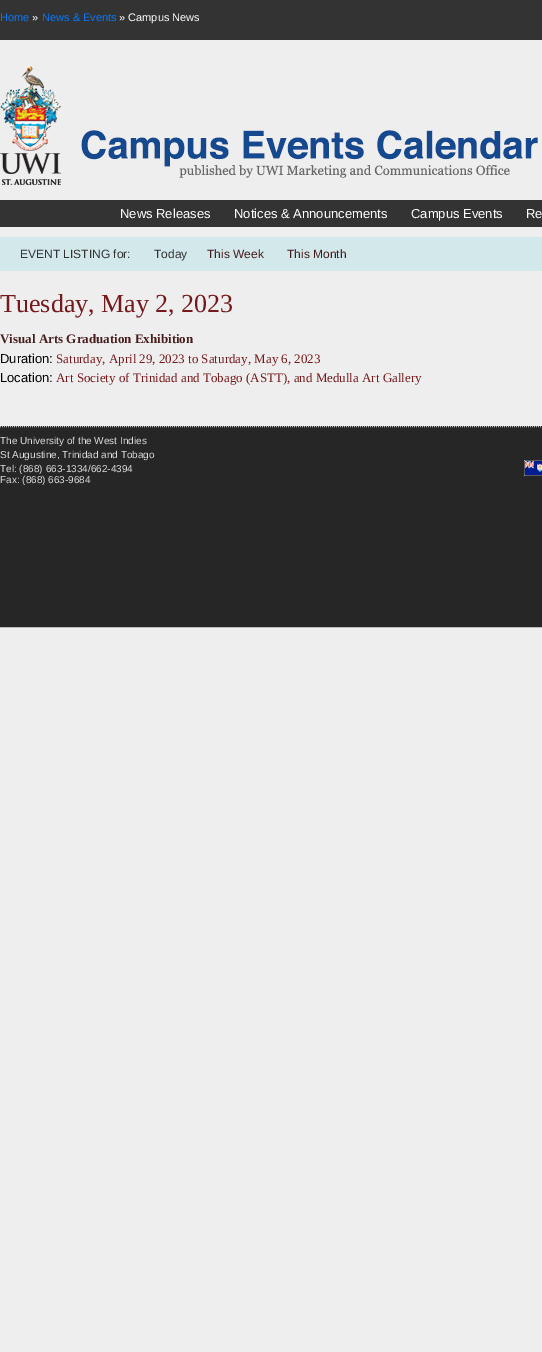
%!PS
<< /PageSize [542 1352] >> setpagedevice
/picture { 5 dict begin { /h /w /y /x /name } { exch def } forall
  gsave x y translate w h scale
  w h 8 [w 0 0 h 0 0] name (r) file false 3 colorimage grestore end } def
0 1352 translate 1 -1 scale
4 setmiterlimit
0.933 setgray
0 0 542 1352 rectfill
0.2 setgray
0 0 542 40 rectfill
/LiberationSans-Regular [11 0 0 -11 0 0] selectfont
0.043 0.475 0.957 setrgbcolor
0 21 moveto (Home) show
1 setgray
32 21 moveto (») show
0.043 0.475 0.957 setrgbcolor
42 21 moveto (News & Events) show
1 setgray
119 21 moveto (» Campus News) show
(img1.rgb) 0 66 61 119 picture
(img2.rgb) 81 130 457 48 picture
0.2 setgray
0 200 542 27 rectfill
/LiberationSans-Regular [13 0 0 -13 0 0] selectfont
1 setgray
120 218 moveto (News Releases) show
234 218 moveto (Notices & Announcements) show
411 218 moveto (Campus Events) show
526 218 moveto (Re) show
0.827 0.91 0.922 setrgbcolor
0 237 542 34 rectfill
/LiberationSans-Regular [12 0 0 -12 0 0] selectfont
0.2 setgray
20 258 moveto (EVENT LISTING for:) show
154 258 moveto (Today) show
0.275 0.114 0.11 setrgbcolor
207 258 moveto (This Week) show
287 258 moveto (This Month) show
/LiberationSerif-Regular [26 0 0 -26 0 0] selectfont
0.459 0.098 0.11 setrgbcolor
0 312 moveto (Tuesday, May 2, 2023) show
/LiberationSerif-Bold [13 0 0 -13 0 0] selectfont
0.275 0.114 0.11 setrgbcolor
0 343 moveto (Visual Arts Graduation Exhibition) show
/LiberationSans-Regular [13 0 0 -13 0 0] selectfont
0 setgray
0 363 moveto (Duration:) show
/LiberationSerif-Regular [13 0 0 -13 0 0] selectfont
0.459 0.098 0.11 setrgbcolor
56 363 moveto (Saturday, April 29, 2023 to Saturday, May 6, 2023) show
/LiberationSans-Regular [13 0 0 -13 0 0] selectfont
0 setgray
0 382 moveto (Location:) show
/LiberationSerif-Regular [13 0 0 -13 0 0] selectfont
0.459 0.098 0.11 setrgbcolor
56 382 moveto (Art Society of Trinidad and Tobago \(ASTT\), and Medulla Art Gallery) show
0.149 setgray
0 426 542 201 rectfill
0.733 setgray
[1 1] 0 setdash
newpath 0 426.5 moveto 542 426.5 lineto stroke
0 627 542 1 rectfill
/LiberationSans-Regular [10 0 0 -10 0 0] selectfont
0.867 setgray
0 444 moveto (The University of the West Indies) show
0 458 moveto (St Augustine, Trinidad and Tobago) show
0 472 moveto (Tel: \(868\) 663-1334/662-4394) show
0 483 moveto (Fax: \(868\) 663-9684) show
(img3.rgb) 524 460 18 16 picture
showpage
